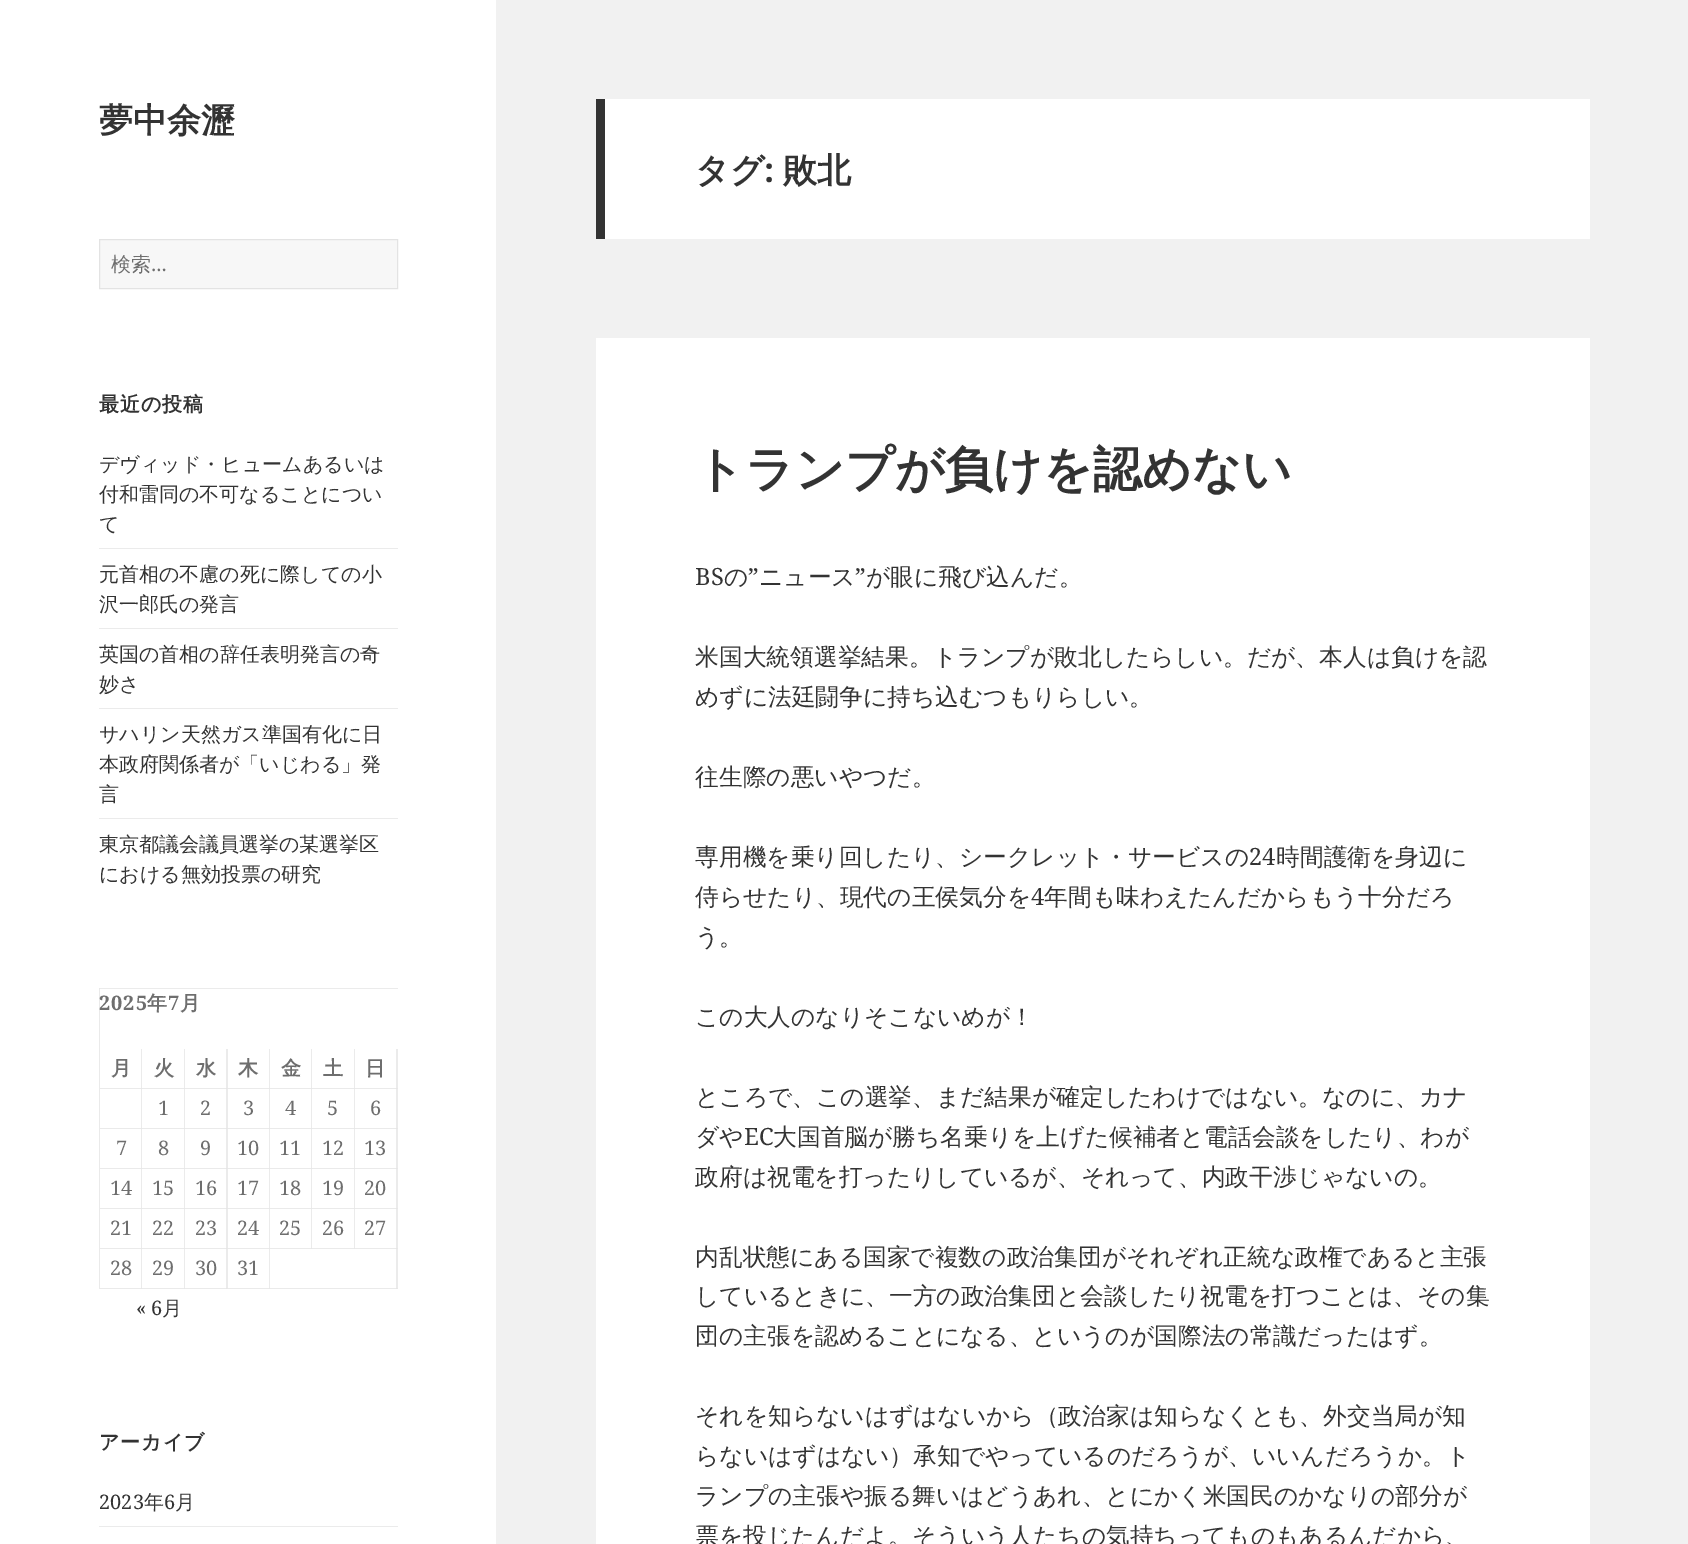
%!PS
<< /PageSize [1688 1544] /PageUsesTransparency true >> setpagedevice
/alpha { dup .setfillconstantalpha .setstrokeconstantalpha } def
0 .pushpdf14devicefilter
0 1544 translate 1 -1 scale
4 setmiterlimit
0.945 setgray
0 0 1688 1544 rectfill
1 setgray
0 0 496 1544 rectfill
/WenQuanYiZenHei-Bold [34 0 0 -34 0 0] selectfont
0.2 setgray
99 132 moveto (夢中余瀝) show
0.969 setgray
newpath 99.5 239.5 moveto 397.5 239.5 lineto 397.5 288.5 lineto 99.5 288.5 lineto closepath gsave fill grestore
0.89 setgray
stroke
/WenQuanYiZenHei-Medium [20 0 0 -20 0 0] selectfont
0.431 setgray
111 271 moveto (検索) show
/NotoSans-Regular [20 0 0 -20 0 0] selectfont
151 271 moveto (…) show
/WenQuanYiZenHei-Bold [20 0 0 -20 0 0] selectfont
0.2 setgray
99 411 moveto 1 0 (最近の投稿) ashow
/WenQuanYiZenHei-Medium [20 0 0 -20 0 0] selectfont
99 471 moveto (デヴィッド・ヒュームあるいは) show
99 501 moveto (付和雷同の不可なることについ) show
99 531 moveto (て) show
0.922 setgray
99 548 299 1 rectfill
0.2 setgray
99 581 moveto (元首相の不慮の死に際しての小) show
99 611 moveto (沢一郎氏の発言) show
0.922 setgray
99 628 299 1 rectfill
0.2 setgray
99 661 moveto (英国の首相の辞任表明発言の奇) show
99 691 moveto (妙さ) show
0.922 setgray
99 708 299 1 rectfill
0.2 setgray
99 741 moveto (サハリン天然ガス準国有化に日) show
99 771 moveto (本政府関係者が「いじわる」発) show
99 801 moveto (言) show
0.922 setgray
99 818 299 1 rectfill
0.2 setgray
99 851 moveto (東京都議会議員選挙の某選挙区) show
99 881 moveto (における無効投票の研究) show
0.922 setgray
newpath 99 988 moveto 398 988 lineto 398 989 lineto 100 989 lineto closepath fill
0.1 alpha
0.2 setgray
newpath 99 1289 moveto 99 988 lineto 100 989 lineto 100 1289 lineto closepath fill
/NotoSerif-Bold [20 0 0 -20 0 0] selectfont
1 alpha
0.431 setgray
99 1010 moveto 1 0 (2025) ashow
/WenQuanYiZenHei-Bold [20 0 0 -20 0 0] selectfont
147 1010 moveto 1 0 (年) ashow
/NotoSerif-Bold [20 0 0 -20 0 0] selectfont
168 1010 moveto 1 0 (7) ashow
/WenQuanYiZenHei-Bold [20 0 0 -20 0 0] selectfont
180 1010 moveto 1 0 (月) ashow
0.922 setgray
newpath 142 1049 moveto 142 1089 lineto 141 1088 lineto 141 1049 lineto closepath fill
0.1 alpha
0.2 setgray
newpath 142 1089 moveto 100 1089 lineto 100 1088 lineto 141 1088 lineto closepath fill
1 alpha
0.431 setgray
111 1075 moveto (月) show
0.922 setgray
newpath 185 1049 moveto 185 1089 lineto 184 1088 lineto 184 1049 lineto closepath fill
0.1 alpha
0.2 setgray
newpath 185 1089 moveto 142 1089 lineto 142 1088 lineto 184 1088 lineto closepath fill
1 alpha
0.431 setgray
154 1075 moveto (火) show
0.922 setgray
newpath 228 1049 moveto 228 1089 lineto 226 1088 lineto 226 1049 lineto closepath fill
0.1 alpha
0.2 setgray
newpath 228 1089 moveto 185 1089 lineto 185 1088 lineto 226 1088 lineto closepath fill
1 alpha
0.431 setgray
196 1075 moveto (水) show
0.922 setgray
newpath 270 1049 moveto 270 1089 lineto 269 1088 lineto 269 1049 lineto closepath fill
0.1 alpha
0.2 setgray
newpath 270 1089 moveto 228 1089 lineto 228 1088 lineto 269 1088 lineto closepath fill
1 alpha
0.431 setgray
238 1075 moveto (木) show
0.922 setgray
newpath 312 1049 moveto 312 1089 lineto 311 1088 lineto 311 1049 lineto closepath fill
0.1 alpha
0.2 setgray
newpath 312 1089 moveto 270 1089 lineto 270 1088 lineto 311 1088 lineto closepath fill
1 alpha
0.431 setgray
281 1075 moveto (金) show
0.922 setgray
newpath 355 1049 moveto 355 1089 lineto 354 1088 lineto 354 1049 lineto closepath fill
0.1 alpha
0.2 setgray
newpath 355 1089 moveto 312 1089 lineto 312 1088 lineto 354 1088 lineto closepath fill
1 alpha
0.431 setgray
323 1075 moveto (土) show
0.922 setgray
newpath 398 1049 moveto 398 1089 lineto 396 1088 lineto 396 1049 lineto closepath fill
0.1 alpha
0.2 setgray
newpath 398 1089 moveto 355 1089 lineto 355 1088 lineto 396 1088 lineto closepath fill
1 alpha
0.431 setgray
365 1075 moveto (日) show
0.922 setgray
newpath 142 1089 moveto 142 1129 lineto 141 1128 lineto 141 1089 lineto closepath fill
0.1 alpha
0.2 setgray
newpath 142 1129 moveto 100 1129 lineto 100 1128 lineto 141 1128 lineto closepath fill
1 alpha
0.922 setgray
newpath 185 1089 moveto 185 1129 lineto 184 1128 lineto 184 1089 lineto closepath fill
0.1 alpha
0.2 setgray
newpath 185 1129 moveto 142 1129 lineto 142 1128 lineto 184 1128 lineto closepath fill
/NotoSerif-Regular [20 0 0 -20 0 0] selectfont
1 alpha
0.431 setgray
158 1115 moveto (1) show
0.922 setgray
newpath 228 1089 moveto 228 1129 lineto 226 1128 lineto 226 1089 lineto closepath fill
0.1 alpha
0.2 setgray
newpath 228 1129 moveto 185 1129 lineto 185 1128 lineto 226 1128 lineto closepath fill
1 alpha
0.431 setgray
200 1115 moveto (2) show
0.922 setgray
newpath 270 1089 moveto 270 1129 lineto 269 1128 lineto 269 1089 lineto closepath fill
0.1 alpha
0.2 setgray
newpath 270 1129 moveto 228 1129 lineto 228 1128 lineto 269 1128 lineto closepath fill
1 alpha
0.431 setgray
243 1115 moveto (3) show
0.922 setgray
newpath 312 1089 moveto 312 1129 lineto 311 1128 lineto 311 1089 lineto closepath fill
0.1 alpha
0.2 setgray
newpath 312 1129 moveto 270 1129 lineto 270 1128 lineto 311 1128 lineto closepath fill
1 alpha
0.431 setgray
285 1115 moveto (4) show
0.922 setgray
newpath 355 1089 moveto 355 1129 lineto 354 1128 lineto 354 1089 lineto closepath fill
0.1 alpha
0.2 setgray
newpath 355 1129 moveto 312 1129 lineto 312 1128 lineto 354 1128 lineto closepath fill
1 alpha
0.431 setgray
327 1115 moveto (5) show
0.922 setgray
newpath 398 1089 moveto 398 1129 lineto 396 1128 lineto 396 1089 lineto closepath fill
0.1 alpha
0.2 setgray
newpath 398 1129 moveto 355 1129 lineto 355 1128 lineto 396 1128 lineto closepath fill
1 alpha
0.431 setgray
370 1115 moveto (6) show
0.922 setgray
newpath 142 1129 moveto 142 1169 lineto 141 1168 lineto 141 1129 lineto closepath fill
0.1 alpha
0.2 setgray
newpath 142 1169 moveto 100 1169 lineto 100 1168 lineto 141 1168 lineto closepath fill
1 alpha
0.431 setgray
116 1155 moveto (7) show
0.922 setgray
newpath 185 1129 moveto 185 1169 lineto 184 1168 lineto 184 1129 lineto closepath fill
0.1 alpha
0.2 setgray
newpath 185 1169 moveto 142 1169 lineto 142 1168 lineto 184 1168 lineto closepath fill
1 alpha
0.431 setgray
158 1155 moveto (8) show
0.922 setgray
newpath 228 1129 moveto 228 1169 lineto 226 1168 lineto 226 1129 lineto closepath fill
0.1 alpha
0.2 setgray
newpath 228 1169 moveto 185 1169 lineto 185 1168 lineto 226 1168 lineto closepath fill
1 alpha
0.431 setgray
200 1155 moveto (9) show
0.922 setgray
newpath 270 1129 moveto 270 1169 lineto 269 1168 lineto 269 1129 lineto closepath fill
0.1 alpha
0.2 setgray
newpath 270 1169 moveto 228 1169 lineto 228 1168 lineto 269 1168 lineto closepath fill
1 alpha
0.431 setgray
237 1155 moveto (10) show
0.922 setgray
newpath 312 1129 moveto 312 1169 lineto 311 1168 lineto 311 1129 lineto closepath fill
0.1 alpha
0.2 setgray
newpath 312 1169 moveto 270 1169 lineto 270 1168 lineto 311 1168 lineto closepath fill
1 alpha
0.431 setgray
279 1155 moveto (11) show
0.922 setgray
newpath 355 1129 moveto 355 1169 lineto 354 1168 lineto 354 1129 lineto closepath fill
0.1 alpha
0.2 setgray
newpath 355 1169 moveto 312 1169 lineto 312 1168 lineto 354 1168 lineto closepath fill
1 alpha
0.431 setgray
322 1155 moveto (12) show
0.922 setgray
newpath 398 1129 moveto 398 1169 lineto 396 1168 lineto 396 1129 lineto closepath fill
0.1 alpha
0.2 setgray
newpath 398 1169 moveto 355 1169 lineto 355 1168 lineto 396 1168 lineto closepath fill
1 alpha
0.431 setgray
364 1155 moveto (13) show
0.922 setgray
newpath 142 1169 moveto 142 1209 lineto 141 1208 lineto 141 1169 lineto closepath fill
0.1 alpha
0.2 setgray
newpath 142 1209 moveto 100 1209 lineto 100 1208 lineto 141 1208 lineto closepath fill
1 alpha
0.431 setgray
110 1195 moveto (14) show
0.922 setgray
newpath 185 1169 moveto 185 1209 lineto 184 1208 lineto 184 1169 lineto closepath fill
0.1 alpha
0.2 setgray
newpath 185 1209 moveto 142 1209 lineto 142 1208 lineto 184 1208 lineto closepath fill
1 alpha
0.431 setgray
152 1195 moveto (15) show
0.922 setgray
newpath 228 1169 moveto 228 1209 lineto 226 1208 lineto 226 1169 lineto closepath fill
0.1 alpha
0.2 setgray
newpath 228 1209 moveto 185 1209 lineto 185 1208 lineto 226 1208 lineto closepath fill
1 alpha
0.431 setgray
195 1195 moveto (16) show
0.922 setgray
newpath 270 1169 moveto 270 1209 lineto 269 1208 lineto 269 1169 lineto closepath fill
0.1 alpha
0.2 setgray
newpath 270 1209 moveto 228 1209 lineto 228 1208 lineto 269 1208 lineto closepath fill
1 alpha
0.431 setgray
237 1195 moveto (17) show
0.922 setgray
newpath 312 1169 moveto 312 1209 lineto 311 1208 lineto 311 1169 lineto closepath fill
0.1 alpha
0.2 setgray
newpath 312 1209 moveto 270 1209 lineto 270 1208 lineto 311 1208 lineto closepath fill
1 alpha
0.431 setgray
279 1195 moveto (18) show
0.922 setgray
newpath 355 1169 moveto 355 1209 lineto 354 1208 lineto 354 1169 lineto closepath fill
0.1 alpha
0.2 setgray
newpath 355 1209 moveto 312 1209 lineto 312 1208 lineto 354 1208 lineto closepath fill
1 alpha
0.431 setgray
322 1195 moveto (19) show
0.922 setgray
newpath 398 1169 moveto 398 1209 lineto 396 1208 lineto 396 1169 lineto closepath fill
0.1 alpha
0.2 setgray
newpath 398 1209 moveto 355 1209 lineto 355 1208 lineto 396 1208 lineto closepath fill
1 alpha
0.431 setgray
364 1195 moveto (20) show
0.922 setgray
newpath 142 1209 moveto 142 1249 lineto 141 1248 lineto 141 1209 lineto closepath fill
0.1 alpha
0.2 setgray
newpath 142 1249 moveto 100 1249 lineto 100 1248 lineto 141 1248 lineto closepath fill
1 alpha
0.431 setgray
110 1235 moveto (21) show
0.922 setgray
newpath 185 1209 moveto 185 1249 lineto 184 1248 lineto 184 1209 lineto closepath fill
0.1 alpha
0.2 setgray
newpath 185 1249 moveto 142 1249 lineto 142 1248 lineto 184 1248 lineto closepath fill
1 alpha
0.431 setgray
152 1235 moveto (22) show
0.922 setgray
newpath 228 1209 moveto 228 1249 lineto 226 1248 lineto 226 1209 lineto closepath fill
0.1 alpha
0.2 setgray
newpath 228 1249 moveto 185 1249 lineto 185 1248 lineto 226 1248 lineto closepath fill
1 alpha
0.431 setgray
195 1235 moveto (23) show
0.922 setgray
newpath 270 1209 moveto 270 1249 lineto 269 1248 lineto 269 1209 lineto closepath fill
0.1 alpha
0.2 setgray
newpath 270 1249 moveto 228 1249 lineto 228 1248 lineto 269 1248 lineto closepath fill
1 alpha
0.431 setgray
237 1235 moveto (24) show
0.922 setgray
newpath 312 1209 moveto 312 1249 lineto 311 1248 lineto 311 1209 lineto closepath fill
0.1 alpha
0.2 setgray
newpath 312 1249 moveto 270 1249 lineto 270 1248 lineto 311 1248 lineto closepath fill
1 alpha
0.431 setgray
279 1235 moveto (25) show
0.922 setgray
newpath 355 1209 moveto 355 1249 lineto 354 1248 lineto 354 1209 lineto closepath fill
0.1 alpha
0.2 setgray
newpath 355 1249 moveto 312 1249 lineto 312 1248 lineto 354 1248 lineto closepath fill
1 alpha
0.431 setgray
322 1235 moveto (26) show
0.922 setgray
newpath 398 1209 moveto 398 1249 lineto 396 1248 lineto 396 1209 lineto closepath fill
0.1 alpha
0.2 setgray
newpath 398 1249 moveto 355 1249 lineto 355 1248 lineto 396 1248 lineto closepath fill
1 alpha
0.431 setgray
364 1235 moveto (27) show
0.922 setgray
newpath 142 1249 moveto 142 1289 lineto 141 1288 lineto 141 1249 lineto closepath fill
0.1 alpha
0.2 setgray
newpath 142 1289 moveto 100 1289 lineto 100 1288 lineto 141 1288 lineto closepath fill
1 alpha
0.431 setgray
110 1275 moveto (28) show
0.922 setgray
newpath 185 1249 moveto 185 1289 lineto 184 1288 lineto 184 1249 lineto closepath fill
0.1 alpha
0.2 setgray
newpath 185 1289 moveto 142 1289 lineto 142 1288 lineto 184 1288 lineto closepath fill
1 alpha
0.431 setgray
152 1275 moveto (29) show
0.922 setgray
newpath 228 1249 moveto 228 1289 lineto 226 1288 lineto 226 1249 lineto closepath fill
0.1 alpha
0.2 setgray
newpath 228 1289 moveto 185 1289 lineto 185 1288 lineto 226 1288 lineto closepath fill
1 alpha
0.431 setgray
195 1275 moveto (30) show
0.922 setgray
newpath 270 1249 moveto 270 1289 lineto 269 1288 lineto 269 1249 lineto closepath fill
0.1 alpha
0.2 setgray
newpath 270 1289 moveto 228 1289 lineto 228 1288 lineto 269 1288 lineto closepath fill
1 alpha
0.431 setgray
237 1275 moveto (31) show
0.922 setgray
newpath 398 1249 moveto 398 1289 lineto 396 1288 lineto 396 1249 lineto closepath fill
0.1 alpha
0.2 setgray
newpath 398 1289 moveto 270 1289 lineto 270 1288 lineto 396 1288 lineto closepath fill
1 alpha
136 1315 moveto (« 6) show
/WenQuanYiZenHei-Medium [20 0 0 -20 0 0] selectfont
162 1315 moveto (月) show
/WenQuanYiZenHei-Bold [20 0 0 -20 0 0] selectfont
99 1449 moveto 1 0 (アーカイブ) ashow
/NotoSerif-Regular [20 0 0 -20 0 0] selectfont
99 1509 moveto (2023) show
/WenQuanYiZenHei-Medium [20 0 0 -20 0 0] selectfont
144 1509 moveto (年) show
/NotoSerif-Regular [20 0 0 -20 0 0] selectfont
164 1509 moveto (6) show
/WenQuanYiZenHei-Medium [20 0 0 -20 0 0] selectfont
175 1509 moveto (月) show
0.922 setgray
99 1526 299 1 rectfill
1 setgray
605 99 985 140 rectfill
0.2 setgray
596 99 9 140 rectfill
/WenQuanYiZenHei-Bold [34 0 0 -34 0 0] selectfont
695 182 moveto (タグ) show
/NotoSerif-Bold [34 0 0 -34 0 0] selectfont
764 182 moveto (:) show
/WenQuanYiZenHei-Bold [34 0 0 -34 0 0] selectfont
783 182 moveto (敗北) show
1 setgray
596 338 994 1206 rectfill
/WenQuanYiZenHei-Bold [48.75 0 0 -48.75 0 0] selectfont
0.2 setgray
695 486 moveto (トランプが負けを認めない) show
/NotoSerif-Regular [23.75 0 0 -23.75 0 0] selectfont
695 585 moveto (BS) show
/WenQuanYiZenHei-Medium [23.75 0 0 -23.75 0 0] selectfont
724 585 moveto (の) show
/NotoSerif-Regular [23.75 0 0 -23.75 0 0] selectfont
748 585 moveto (”) show
/WenQuanYiZenHei-Medium [23.75 0 0 -23.75 0 0] selectfont
759 585 moveto (ニュース) show
/NotoSerif-Regular [23.75 0 0 -23.75 0 0] selectfont
855 585 moveto (”) show
/WenQuanYiZenHei-Medium [23.75 0 0 -23.75 0 0] selectfont
866 585 moveto (が眼に飛び込んだ。) show
695 665 moveto (米国大統領選挙結果。トランプが敗北したらしい。だが、本人は負けを認) show
695 705 moveto (めずに法廷闘争に持ち込むつもりらしい。) show
695 785 moveto (往生際の悪いやつだ。) show
695 865 moveto (専用機を乗り回したり、シークレット・サービスの) show
/NotoSerif-Regular [23.75 0 0 -23.75 0 0] selectfont
1249 865 moveto (24) show
/WenQuanYiZenHei-Medium [23.75 0 0 -23.75 0 0] selectfont
1276 865 moveto (時間護衛を身辺に) show
695 905 moveto (侍らせたり、現代の王侯気分を) show
/NotoSerif-Regular [23.75 0 0 -23.75 0 0] selectfont
1031 905 moveto (4) show
/WenQuanYiZenHei-Medium [23.75 0 0 -23.75 0 0] selectfont
1044 905 moveto (年間も味わえたんだからもう十分だろ) show
695 945 moveto (う。) show
695 1025 moveto (この大人のなりそこないめが！) show
695 1105 moveto (ところで、この選挙、まだ結果が確定したわけではない。なのに、カナ) show
695 1145 moveto (ダや) show
/NotoSerif-Regular [23.75 0 0 -23.75 0 0] selectfont
744 1145 moveto (EC) show
/WenQuanYiZenHei-Medium [23.75 0 0 -23.75 0 0] selectfont
773 1145 moveto (大国首脳が勝ち名乗りを上げた候補者と電話会談をしたり、わが) show
695 1185 moveto (政府は祝電を打ったりしているが、それって、内政干渉じゃないの。) show
695 1265 moveto (内乱状態にある国家で複数の政治集団がそれぞれ正統な政権であると主張) show
695 1304 moveto (しているときに、一方の政治集団と会談したり祝電を打つことは、その集) show
695 1344 moveto (団の主張を認めることになる、というのが国際法の常識だったはず。) show
695 1424 moveto (それを知らないはずはないから（政治家は知らなくとも、外交当局が知) show
695 1464 moveto (らないはずはない）承知でやっているのだろうが、いいんだろうか。ト) show
695 1504 moveto (ランプの主張や振る舞いはどうあれ、とにかく米国民のかなりの部分が) show
695 1544 moveto (票を投じたんだよ。そういう人たちの気持ちってものもあるんだから、) show
.poppdf14devicefilter showpage
